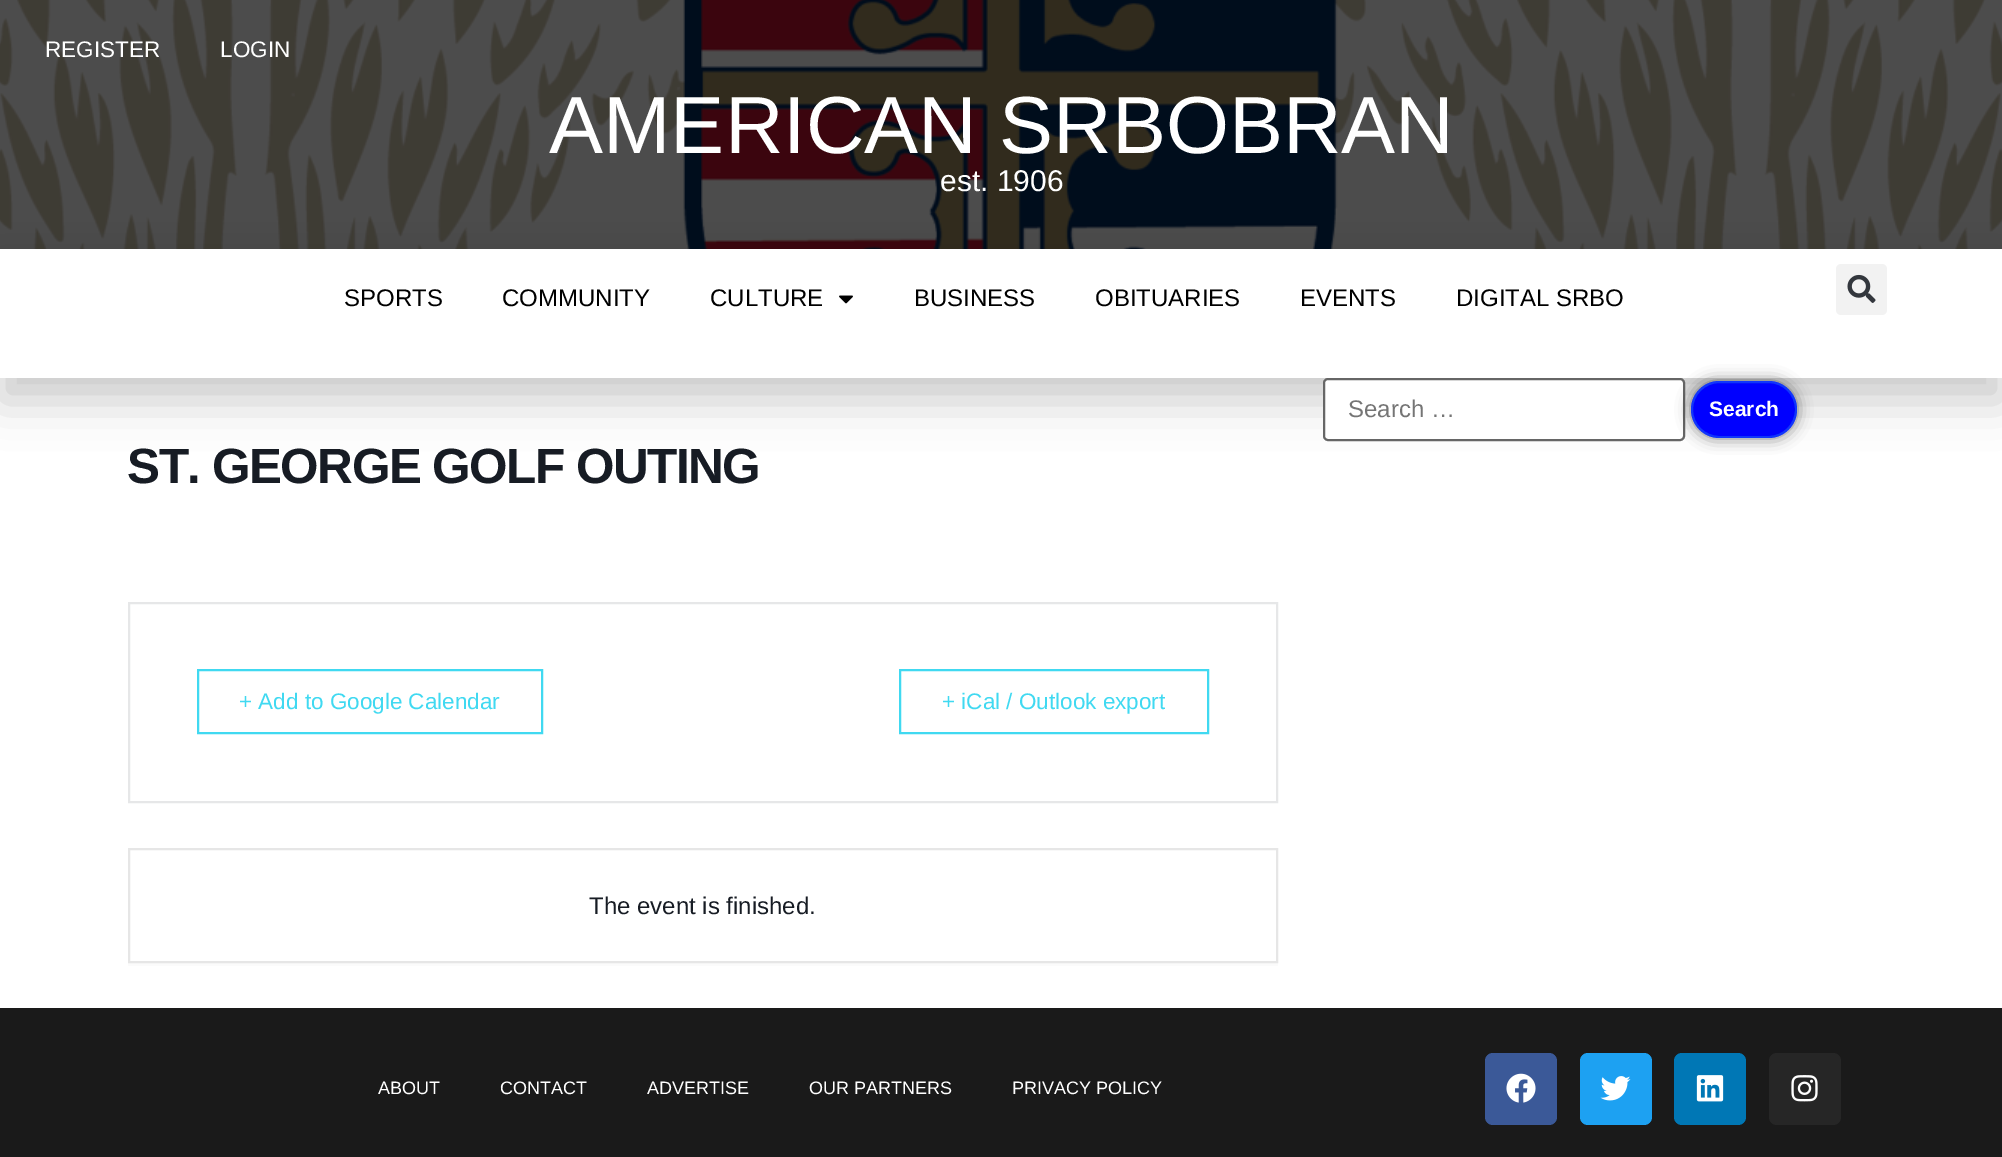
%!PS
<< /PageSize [2002 1157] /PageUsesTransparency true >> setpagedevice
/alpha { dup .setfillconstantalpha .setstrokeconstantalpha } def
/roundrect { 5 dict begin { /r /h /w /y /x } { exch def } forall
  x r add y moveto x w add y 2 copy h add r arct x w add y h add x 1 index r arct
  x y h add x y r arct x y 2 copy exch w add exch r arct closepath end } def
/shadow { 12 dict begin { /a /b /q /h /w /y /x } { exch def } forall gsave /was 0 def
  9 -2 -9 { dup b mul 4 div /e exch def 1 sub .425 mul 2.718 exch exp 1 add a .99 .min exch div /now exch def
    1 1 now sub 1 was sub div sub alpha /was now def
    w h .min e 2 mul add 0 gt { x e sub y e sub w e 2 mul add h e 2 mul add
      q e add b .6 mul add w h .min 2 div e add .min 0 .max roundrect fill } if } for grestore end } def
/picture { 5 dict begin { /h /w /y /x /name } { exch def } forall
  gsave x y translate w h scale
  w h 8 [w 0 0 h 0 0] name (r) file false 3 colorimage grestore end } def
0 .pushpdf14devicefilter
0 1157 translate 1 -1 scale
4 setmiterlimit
1 setgray
0 0 2002 1157 rectfill
0.302 setgray
0 0 2002 249 rectfill
(img1.rgb) 0 0 2002 249 picture
/LiberationSans-Regular [22.5 0 0 -22.5 0 0] selectfont
1 setgray
45 57 moveto (REGISTER) show
220 57 moveto (LOGIN) show
/LiberationSans-Regular [81 0 0 -81 0 0] selectfont
549 153 moveto (AMERICAN SRBOBRAN) show
/LiberationSans-Regular [30 0 0 -30 0 0] selectfont
940 191 moveto (est. 1906) show
gsave
newpath 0 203 moveto 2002 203 lineto 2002 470 lineto 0 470 lineto closepath 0 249 moveto 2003 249 lineto 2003 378 lineto 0 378 lineto closepath eoclip newpath
0 setgray
0 272 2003 129 0 22.5 0.21 shadow
grestore
/LiberationSans-Regular [24 0 0 -24 0 0] selectfont
0 setgray
344 306 moveto (SPORTS) show
502 306 moveto (COMMUNITY) show
710 306 moveto (CULTURE) show
(img2.rgb) 839 295 14 9 picture
914 306 moveto (BUSINESS) show
1095 306 moveto (OBITUARIES) show
1300 306 moveto (EVENTS) show
1456 306 moveto (DIGITAL SRBO) show
0.949 setgray
1836 264 51 51 5 roundrect fill
(img3.rgb) 1847 274 29 29 picture
1 setgray
1324 379 360 61 4 roundrect gsave fill grestore
0.4 setgray
2 setlinewidth
stroke
0.459 setgray
1348 417 moveto (Search …) show
0 setgray
1691 381 106 57 28.5 7.5 0.5 shadow
0 0 1 setrgbcolor
1691 381 106 57 28.5 roundrect fill
0.25 alpha
0.251 0.851 0.945 setrgbcolor
1692 382 104 55 27.5 roundrect stroke
/LiberationSans-Bold [21 0 0 -21 0 0] selectfont
1 alpha
1 setgray
1709 416 moveto (Search) show
/LiberationSans-Bold [49.5 0 0 -49.5 0 0] selectfont
0.09 0.11 0.141 setrgbcolor
127 483 moveto -1.5 0 (ST. GEORGE GOLF OUTING) ashow
0.902 0.906 0.91 setrgbcolor
129 603 1148 199 rectstroke
0.251 0.851 0.945 setrgbcolor
198 670 344 63 rectstroke
/LiberationSans-Regular [22.5 0 0 -22.5 0 0] selectfont
239 709 moveto (+ Add to Google Calendar) show
900 670 308 63 rectstroke
942 709 moveto (+ iCal / Outlook export) show
0.984 setgray
128 963 1150 3 rectfill
0.902 setgray
129 849 1148 113 rectstroke
/LiberationSans-Regular [24 0 0 -24 0 0] selectfont
0.09 0.11 0.141 setrgbcolor
589 914 moveto (The event is finished.) show
0.102 setgray
0 1008 2002 149 rectfill
/LiberationSans-Regular [18 0 0 -18 0 0] selectfont
1 setgray
378 1094 moveto (ABOUT) show
500 1094 moveto (CONTACT) show
647 1094 moveto (ADVERTISE) show
809 1094 moveto (OUR PARTNERS) show
1012 1094 moveto (PRIVACY POLICY) show
0.231 0.349 0.596 setrgbcolor
1485 1053 72 72 8 roundrect fill
(img4.rgb) 1506 1073 30 30 picture
0.114 0.631 0.949 setrgbcolor
1580 1053 72 72 8 roundrect fill
(img5.rgb) 1600 1076 31 25 picture
0 0.467 0.71 setrgbcolor
1674 1053 72 72 8 roundrect fill
(img6.rgb) 1696 1075 28 27 picture
0.149 setgray
1769 1053 72 72 8 roundrect fill
(img7.rgb) 1791 1075 27 27 picture
.poppdf14devicefilter showpage
